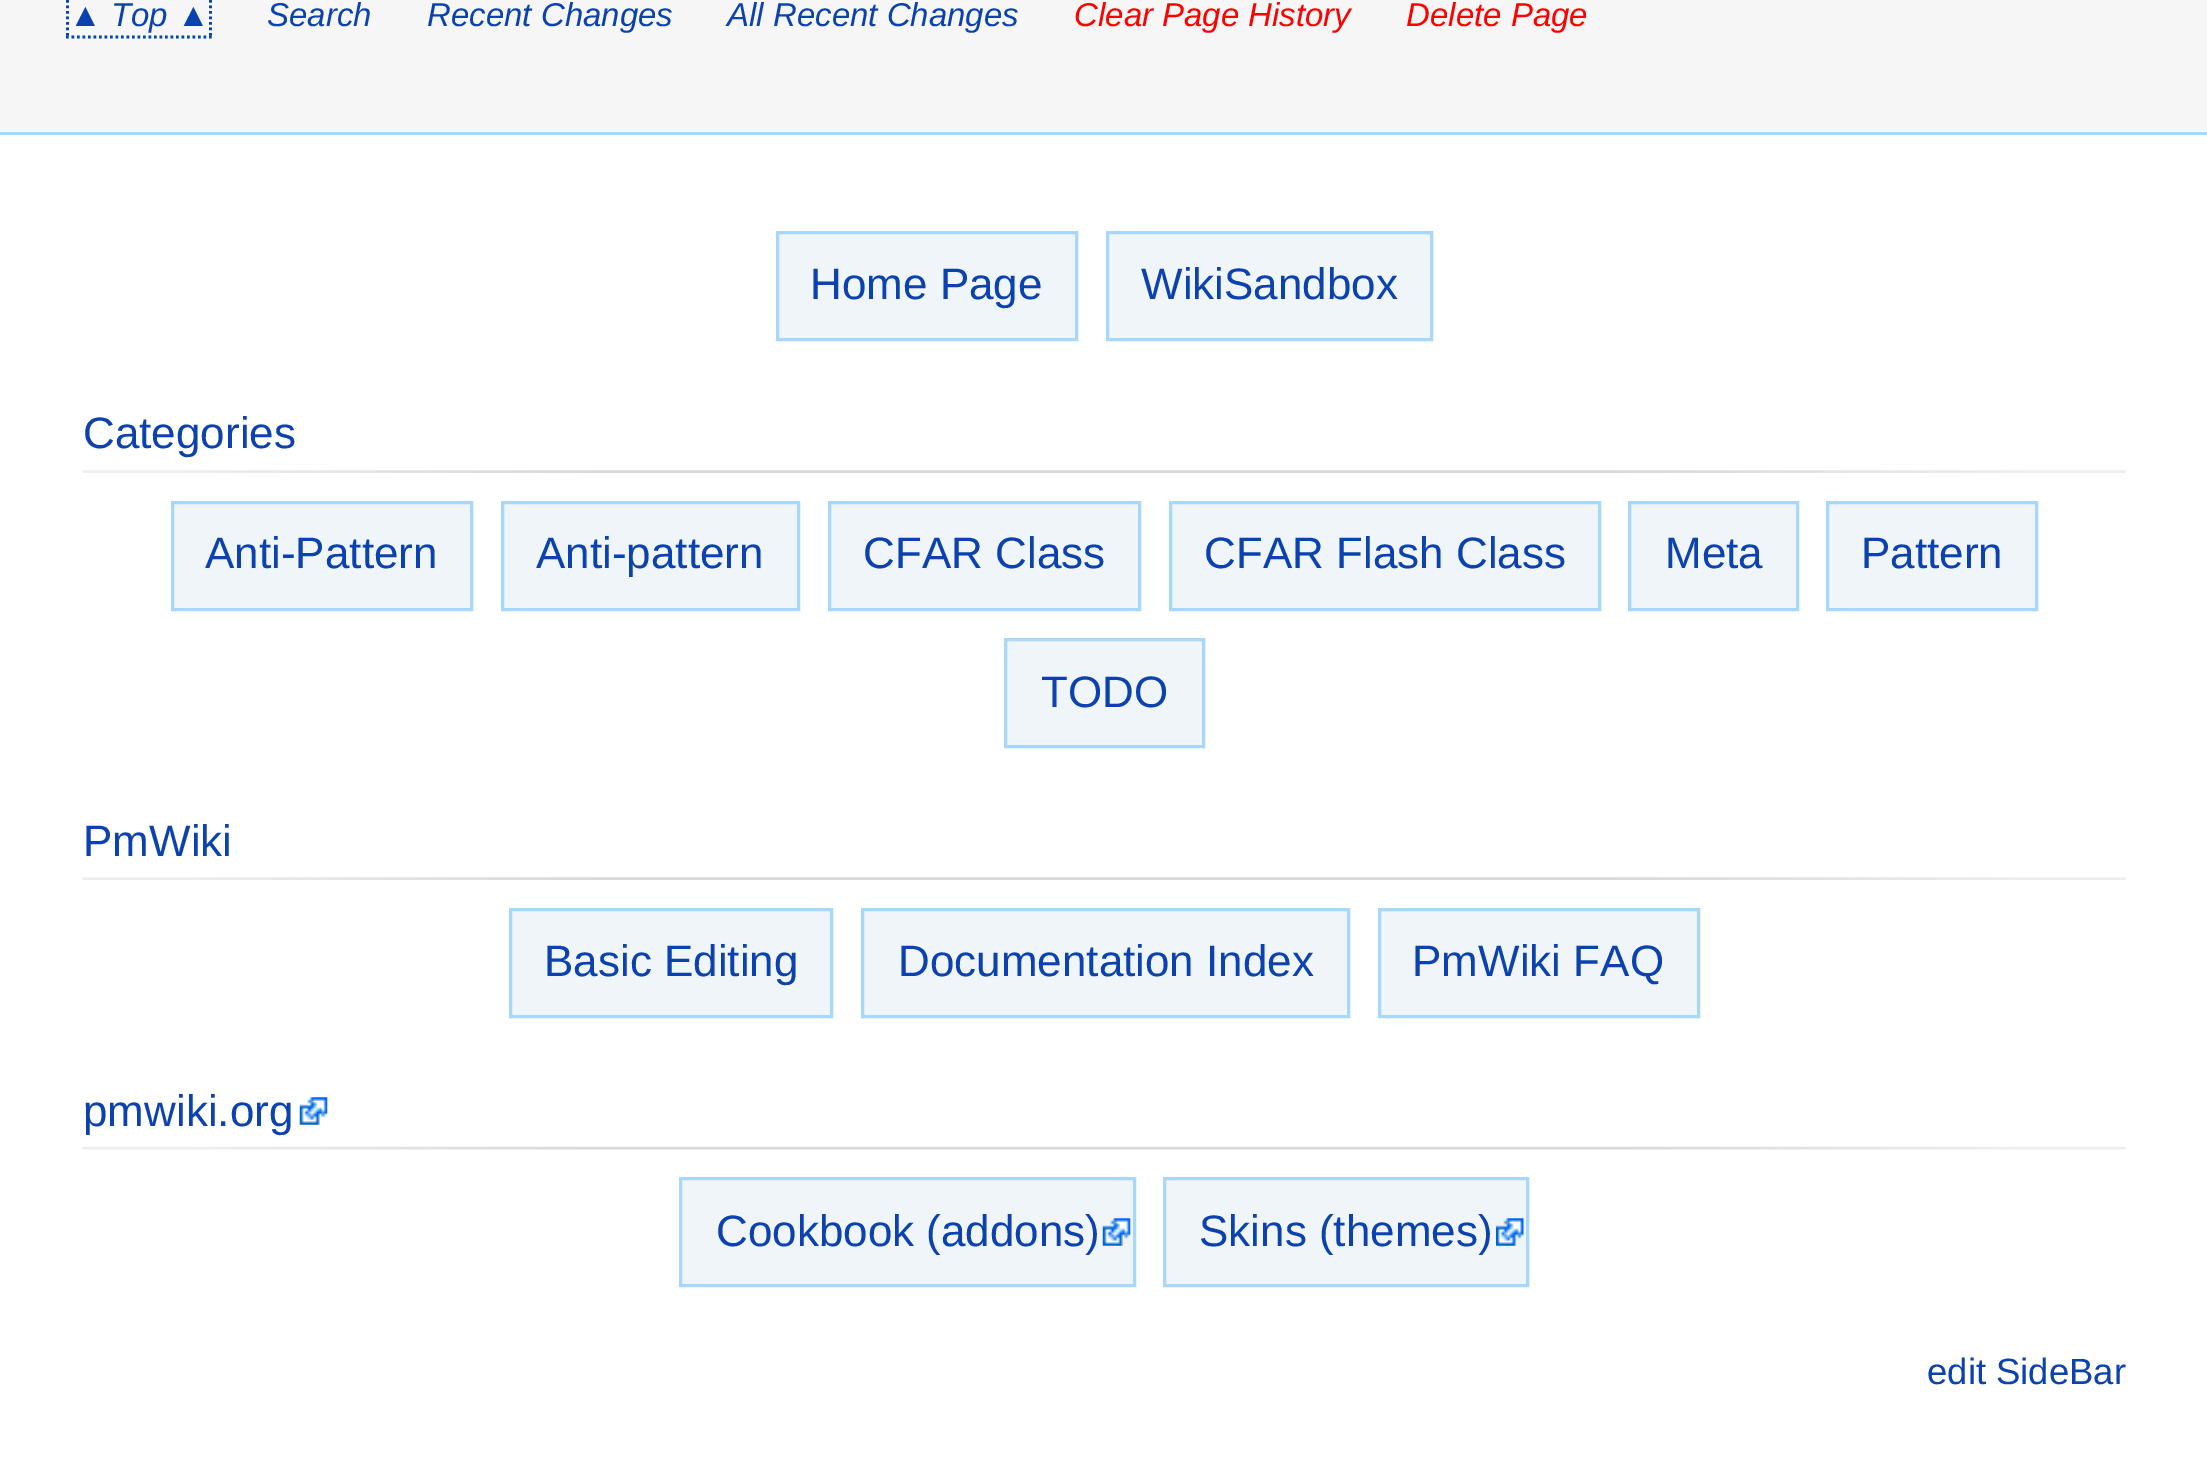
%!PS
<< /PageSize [2207 1476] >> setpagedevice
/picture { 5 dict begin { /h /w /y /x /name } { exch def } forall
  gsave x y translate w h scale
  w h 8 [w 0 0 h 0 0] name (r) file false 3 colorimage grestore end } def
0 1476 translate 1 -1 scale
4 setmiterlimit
0.965 setgray
0 0 2207 1476 rectfill
0.655 0.843 0.976 setrgbcolor
0 132 2207 3 rectfill
/LiberationSans-Italic [33 0 0 -33 0 0] selectfont
0.043 0.259 0.686 setrgbcolor
69 26 moveto (▲ Top ▲) show
0.024 0.271 0.678 setrgbcolor
2.8 setlinewidth
[2.75 2.75] 0 setdash
newpath 210.5 -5.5 moveto 210.5 38.5 lineto stroke
newpath 66 37 moveto 212 37 lineto stroke
newpath 67.5 -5.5 moveto 67.5 38.5 lineto stroke
0.043 0.259 0.686 setrgbcolor
267 26 moveto (Search) show
427 26 moveto (Recent Changes) show
727 26 moveto (All Recent Changes) show
1 0 0 setrgbcolor
1074 26 moveto (Clear Page History) show
1406 26 moveto (Delete Page) show
1 setgray
0 135 2207 1341 rectfill
0.941 0.961 0.98 setrgbcolor
newpath 777.5 232.5 moveto 1076.5 232.5 lineto 1076.5 339.5 lineto 777.5 339.5 lineto closepath gsave fill grestore
0.655 0.843 0.976 setrgbcolor
3 setlinewidth
[] 0 setdash
stroke
/LiberationSans-Regular [44 0 0 -44 0 0] selectfont
0.043 0.259 0.686 setrgbcolor
810 299 moveto (Home Page) show
0.941 0.961 0.98 setrgbcolor
newpath 1107.5 232.5 moveto 1431.5 232.5 lineto 1431.5 339.5 lineto 1107.5 339.5 lineto closepath gsave fill grestore
0.655 0.843 0.976 setrgbcolor
stroke
0.043 0.259 0.686 setrgbcolor
1141 299 moveto (WikiSandbox) show
(img1.rgb) 82 470 2044 3 picture
83 448 moveto (Categories) show
0.941 0.961 0.98 setrgbcolor
newpath 172.5 502.5 moveto 471.5 502.5 lineto 471.5 609.5 lineto 172.5 609.5 lineto closepath gsave fill grestore
0.655 0.843 0.976 setrgbcolor
stroke
0.043 0.259 0.686 setrgbcolor
205 568 moveto (Anti-Pattern) show
0.941 0.961 0.98 setrgbcolor
newpath 502.5 502.5 moveto 798.5 502.5 lineto 798.5 609.5 lineto 502.5 609.5 lineto closepath gsave fill grestore
0.655 0.843 0.976 setrgbcolor
stroke
0.043 0.259 0.686 setrgbcolor
536 568 moveto (Anti-pattern) show
0.941 0.961 0.98 setrgbcolor
newpath 829.5 502.5 moveto 1139.5 502.5 lineto 1139.5 609.5 lineto 829.5 609.5 lineto closepath gsave fill grestore
0.655 0.843 0.976 setrgbcolor
stroke
0.043 0.259 0.686 setrgbcolor
863 568 moveto (CFAR Class) show
0.941 0.961 0.98 setrgbcolor
newpath 1170.5 502.5 moveto 1599.5 502.5 lineto 1599.5 609.5 lineto 1170.5 609.5 lineto closepath gsave fill grestore
0.655 0.843 0.976 setrgbcolor
stroke
0.043 0.259 0.686 setrgbcolor
1204 568 moveto (CFAR Flash Class) show
0.941 0.961 0.98 setrgbcolor
newpath 1629.5 502.5 moveto 1797.5 502.5 lineto 1797.5 609.5 lineto 1629.5 609.5 lineto closepath gsave fill grestore
0.655 0.843 0.976 setrgbcolor
stroke
0.043 0.259 0.686 setrgbcolor
1665 568 moveto (Meta) show
0.941 0.961 0.98 setrgbcolor
newpath 1827.5 502.5 moveto 2036.5 502.5 lineto 2036.5 609.5 lineto 1827.5 609.5 lineto closepath gsave fill grestore
0.655 0.843 0.976 setrgbcolor
stroke
0.043 0.259 0.686 setrgbcolor
1861 568 moveto (Pattern) show
0.941 0.961 0.98 setrgbcolor
newpath 1005.5 639.5 moveto 1203.5 639.5 lineto 1203.5 746.5 lineto 1005.5 746.5 lineto closepath gsave fill grestore
0.655 0.843 0.976 setrgbcolor
stroke
0.043 0.259 0.686 setrgbcolor
1041 707 moveto (TODO) show
(img2.rgb) 82 877 2044 3 picture
83 856 moveto (PmWiki) show
0.941 0.961 0.98 setrgbcolor
newpath 510.5 909.5 moveto 831.5 909.5 lineto 831.5 1016.5 lineto 510.5 1016.5 lineto closepath gsave fill grestore
0.655 0.843 0.976 setrgbcolor
stroke
0.043 0.259 0.686 setrgbcolor
544 976 moveto (Basic Editing) show
0.941 0.961 0.98 setrgbcolor
newpath 862.5 909.5 moveto 1348.5 909.5 lineto 1348.5 1016.5 lineto 862.5 1016.5 lineto closepath gsave fill grestore
0.655 0.843 0.976 setrgbcolor
stroke
0.043 0.259 0.686 setrgbcolor
898 976 moveto (Documentation Index) show
0.941 0.961 0.98 setrgbcolor
newpath 1379.5 909.5 moveto 1698.5 909.5 lineto 1698.5 1016.5 lineto 1379.5 1016.5 lineto closepath gsave fill grestore
0.655 0.843 0.976 setrgbcolor
stroke
0.043 0.259 0.686 setrgbcolor
1412 976 moveto (PmWiki FAQ) show
(img3.rgb) 82 1146 2044 4 picture
83 1126 moveto (pmwiki.org) show
(img4.rgb) 299 1097 29 28 picture
0.941 0.961 0.98 setrgbcolor
682 1180 451 104 rectfill
(img5.rgb) 1102 1218 29 28 picture
0.655 0.843 0.976 setrgbcolor
680.5 1178.5 454 107 rectstroke
0.043 0.259 0.686 setrgbcolor
716 1246 moveto (Cookbook \(addons\)) show
0.941 0.961 0.98 setrgbcolor
1166 1180 360 104 rectfill
(img6.rgb) 1496 1218 28 28 picture
0.655 0.843 0.976 setrgbcolor
1164.5 1178.5 363 107 rectstroke
0.043 0.259 0.686 setrgbcolor
1199 1246 moveto (Skins \(themes\)) show
/LiberationSans-Regular [36.5 0 0 -36.5 0 0] selectfont
1927 1384 moveto (edit SideBar) show
showpage
